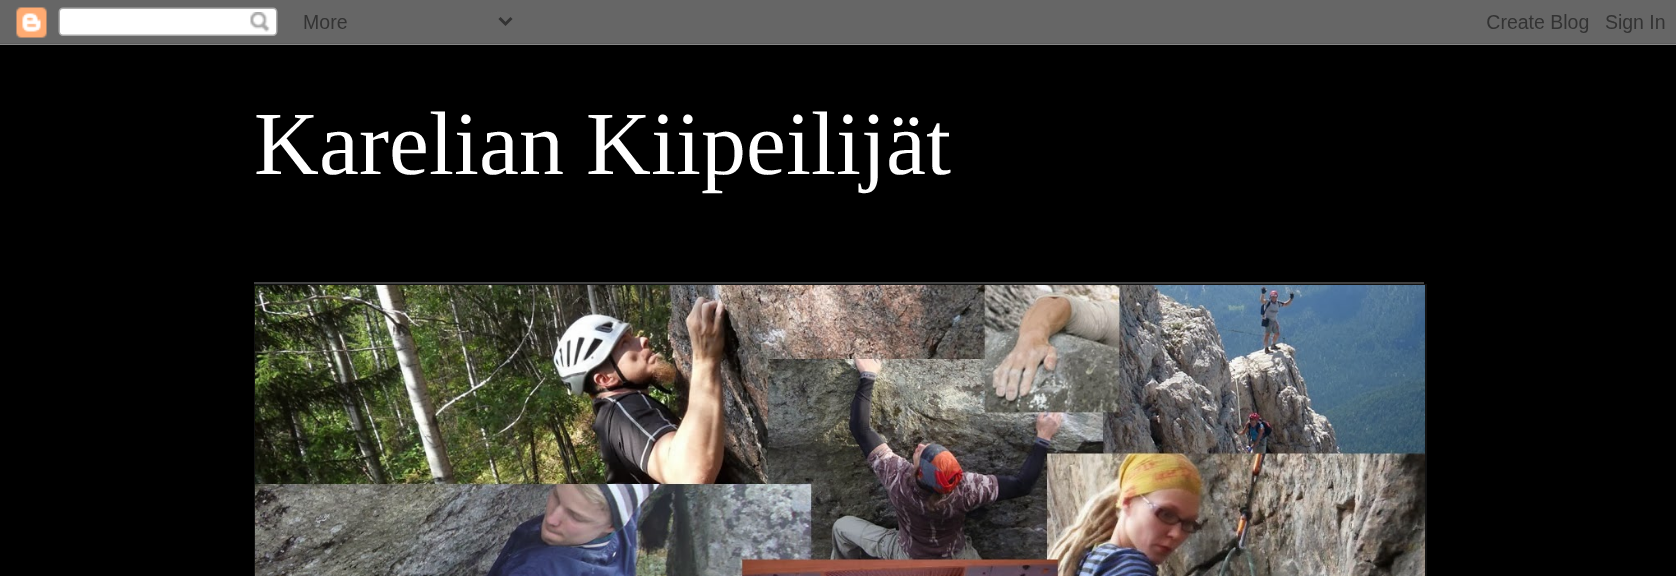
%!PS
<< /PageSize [1676 576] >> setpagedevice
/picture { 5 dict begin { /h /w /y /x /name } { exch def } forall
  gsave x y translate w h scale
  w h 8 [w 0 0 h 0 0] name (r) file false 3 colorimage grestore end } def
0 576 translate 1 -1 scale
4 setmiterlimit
0 setgray
0 0 1676 576 rectfill
(img1.rgb) 0 0 1676 45 picture
/LiberationSerif-Regular [90 0 0 -90 0 0] selectfont
1 setgray
254 174 moveto (Karelian Kiipeilijät) show
0.251 setgray
254 282 1170 2 rectfill
0.067 setgray
254 284 1173 292 rectfill
(img2.rgb) 255 285 1170 291 picture
showpage
